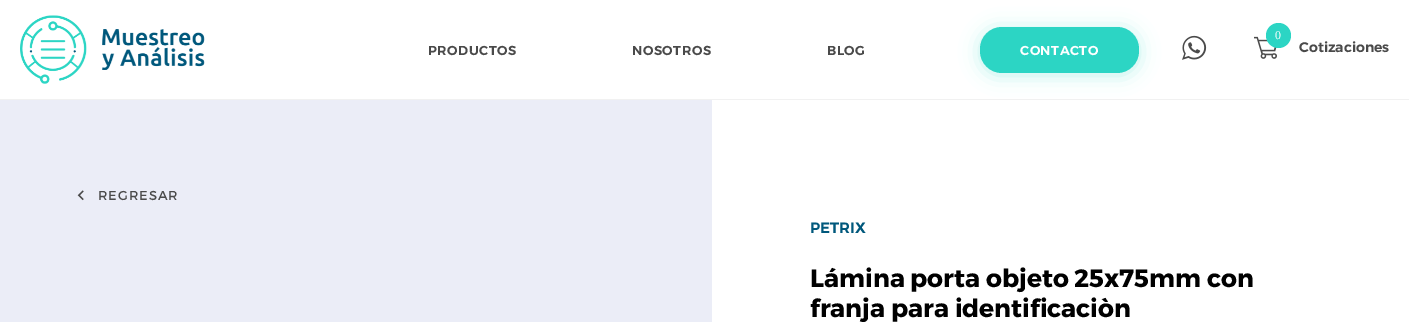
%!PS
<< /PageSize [1409 322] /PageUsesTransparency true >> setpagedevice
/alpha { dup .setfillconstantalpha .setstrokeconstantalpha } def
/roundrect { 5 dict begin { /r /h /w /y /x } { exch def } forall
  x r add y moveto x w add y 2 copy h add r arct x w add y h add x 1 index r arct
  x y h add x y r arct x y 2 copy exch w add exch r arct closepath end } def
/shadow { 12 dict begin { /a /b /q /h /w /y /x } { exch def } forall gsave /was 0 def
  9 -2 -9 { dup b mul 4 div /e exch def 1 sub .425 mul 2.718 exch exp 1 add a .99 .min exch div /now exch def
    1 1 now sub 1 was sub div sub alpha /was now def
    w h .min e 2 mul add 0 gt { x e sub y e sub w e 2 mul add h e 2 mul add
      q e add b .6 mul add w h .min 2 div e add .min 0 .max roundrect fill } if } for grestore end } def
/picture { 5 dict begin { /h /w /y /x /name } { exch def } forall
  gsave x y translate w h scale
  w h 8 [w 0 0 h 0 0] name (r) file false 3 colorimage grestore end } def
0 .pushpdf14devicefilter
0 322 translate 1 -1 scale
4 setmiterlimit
1 setgray
0 0 1409 322 rectfill
(img1.rgb) 20 15 185 69 picture
/Montserrat-SemiBold [13 0 0 -13 0 0] selectfont
0.29 setgray
428 55 moveto 0.5 0 (PRODUCTOS) ashow
632 55 moveto 0.5 0 (NOSOTROS) ashow
827 55 moveto 0.5 0 (BLOG) ashow
0.173 0.835 0.769 setrgbcolor
980 29 159 46 22 10 0.3 shadow
980 27 159 46 22 roundrect fill
1 setgray
1020 55 moveto 0.5 0 (CONTACTO) ashow
(img2.rgb) 1182 35 25 25 picture
(img3.rgb) 1254 36 23 23 picture
0.173 0.835 0.769 setrgbcolor
newpath 1278.5 35.5 12.5 0 360 arc closepath fill
/LiberationSerif-Regular [12 0 0 -12 0 0] selectfont
1 setgray
1275 39 moveto (0) show
/Montserrat-SemiBold [14 0 0 -14 0 0] selectfont
0.29 setgray
1299 52 moveto (Cotizaciones) show
0.945 setgray
0 99 1409 1 rectfill
0.922 0.929 0.969 setrgbcolor
0 100 712 222 rectfill
(img4.rgb) 77 190 7 11 picture
/Montserrat-Regular [13 0 0 -13 0 0] selectfont
0.29 setgray
98 200 moveto 1 0 (REGRESAR) ashow
/Montserrat-SemiBold [15 0 0 -15 0 0] selectfont
0 0.345 0.486 setrgbcolor
810 233 moveto (PETRIX) show
/Montserrat-Bold [25 0 0 -25 0 0] selectfont
0 setgray
810 287 moveto (Lámina porta objeto 25x75mm con) show
810 317 moveto (franja para identificaciòn) show
.poppdf14devicefilter showpage
